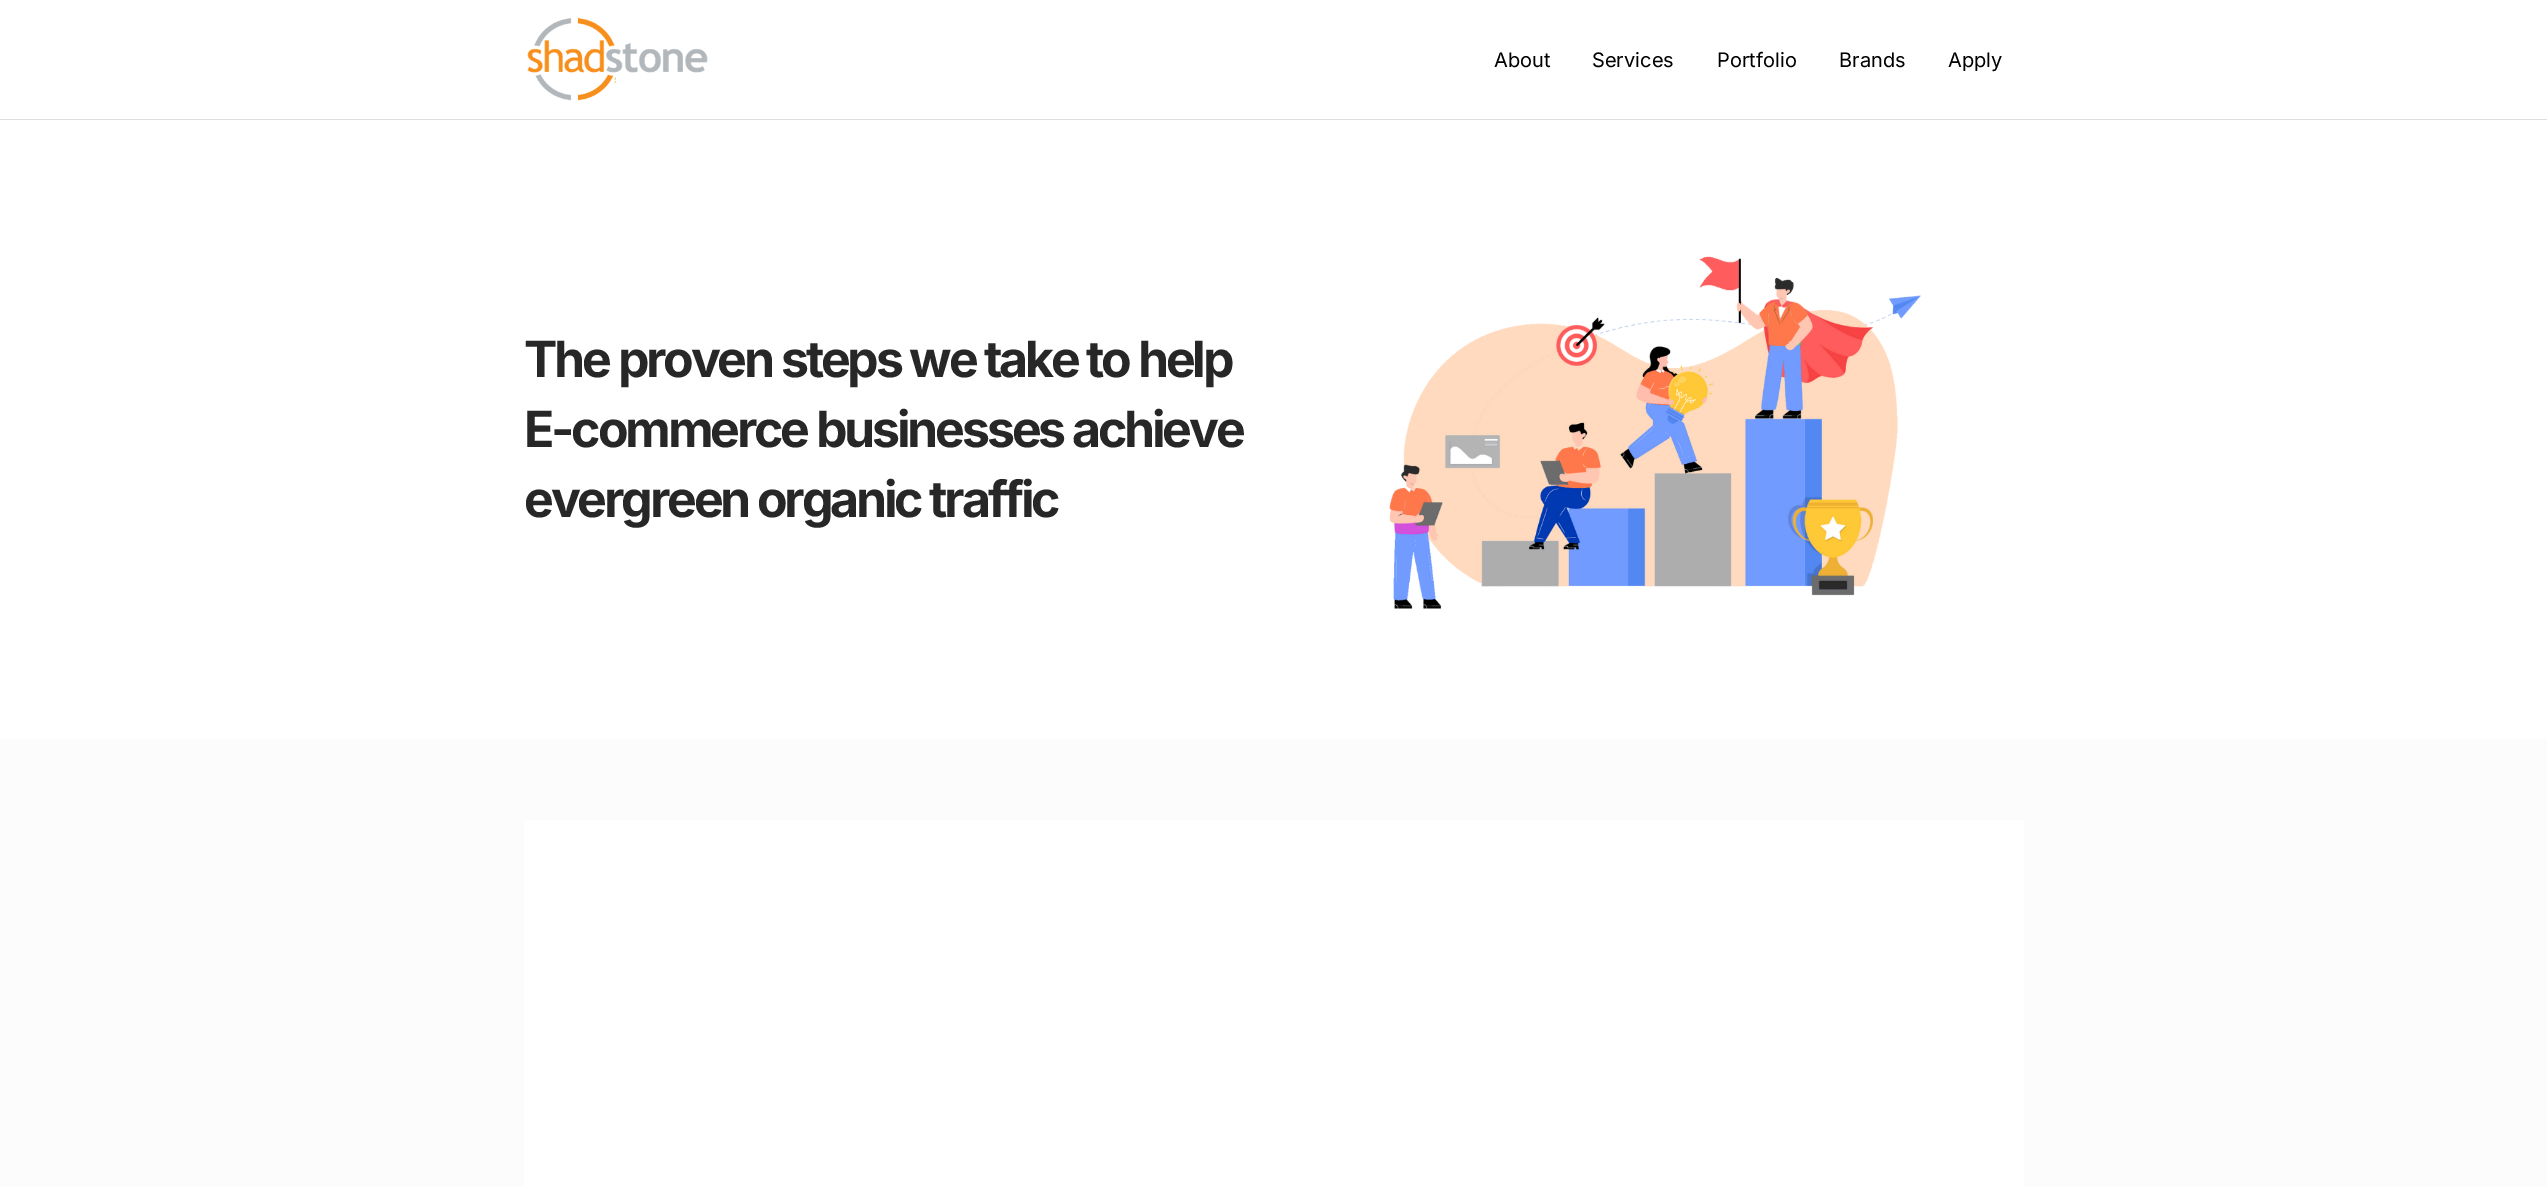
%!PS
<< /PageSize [2547 1186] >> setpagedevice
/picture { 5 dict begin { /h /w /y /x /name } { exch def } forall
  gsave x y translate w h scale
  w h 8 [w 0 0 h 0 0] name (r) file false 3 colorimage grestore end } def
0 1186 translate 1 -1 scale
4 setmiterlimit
1 setgray
0 0 2547 1186 rectfill
0.863 0.875 0.882 setrgbcolor
0 119 2547 1 rectfill
(img1.rgb) 527 18 181 83 picture
/Inter-Regular [20 0 0 -20 0 0] selectfont
0 setgray
1494 67 moveto (About) show
1592 67 moveto (Services) show
1717 67 moveto (Portfolio) show
1839 67 moveto (Brands) show
1948 67 moveto (Apply) show
/Inter-Bold [50 0 0 -50 0 0] selectfont
0.153 setgray
524 377 moveto -3.15 0 (The proven steps we take to help) ashow
524 447 moveto -3.15 0 (E-commerce businesses achieve) ashow
524 517 moveto -3.15 0 (evergreen organic traffic) ashow
(img2.rgb) 1389 256 532 353 picture
0.988 setgray
0 739 2547 447 rectfill
1 setgray
524 820 1500 366 rectfill
showpage
